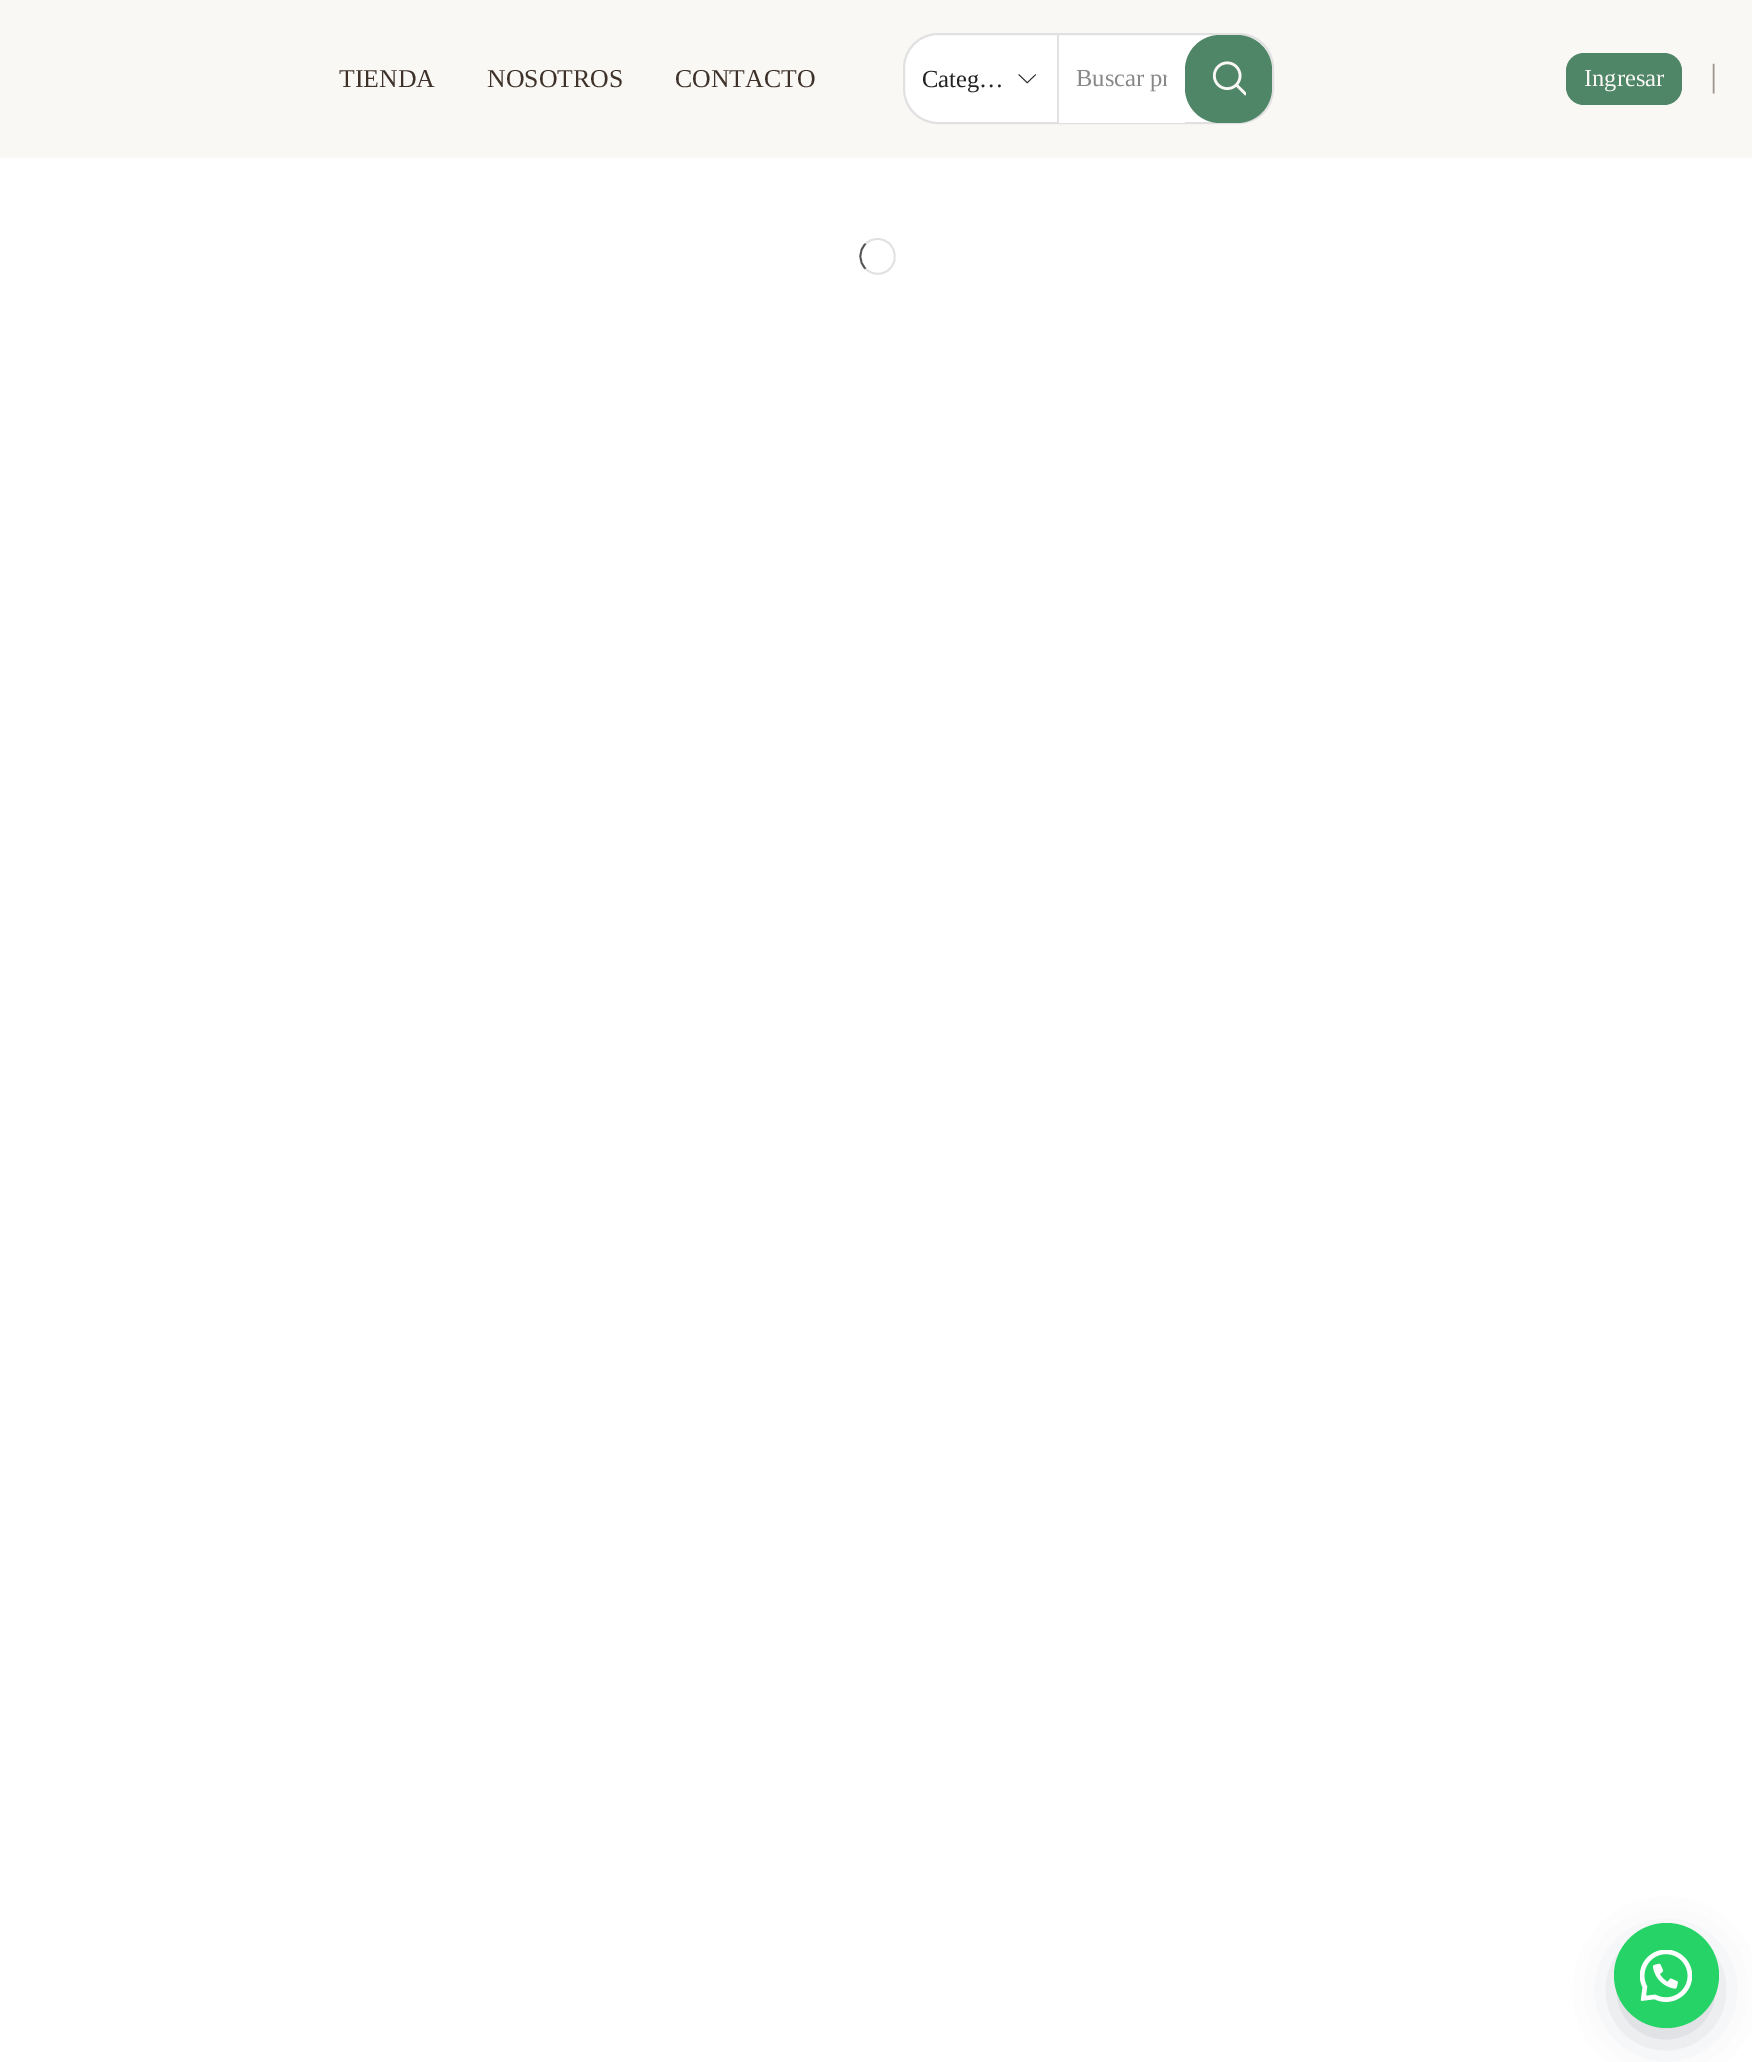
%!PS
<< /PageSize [1752 2062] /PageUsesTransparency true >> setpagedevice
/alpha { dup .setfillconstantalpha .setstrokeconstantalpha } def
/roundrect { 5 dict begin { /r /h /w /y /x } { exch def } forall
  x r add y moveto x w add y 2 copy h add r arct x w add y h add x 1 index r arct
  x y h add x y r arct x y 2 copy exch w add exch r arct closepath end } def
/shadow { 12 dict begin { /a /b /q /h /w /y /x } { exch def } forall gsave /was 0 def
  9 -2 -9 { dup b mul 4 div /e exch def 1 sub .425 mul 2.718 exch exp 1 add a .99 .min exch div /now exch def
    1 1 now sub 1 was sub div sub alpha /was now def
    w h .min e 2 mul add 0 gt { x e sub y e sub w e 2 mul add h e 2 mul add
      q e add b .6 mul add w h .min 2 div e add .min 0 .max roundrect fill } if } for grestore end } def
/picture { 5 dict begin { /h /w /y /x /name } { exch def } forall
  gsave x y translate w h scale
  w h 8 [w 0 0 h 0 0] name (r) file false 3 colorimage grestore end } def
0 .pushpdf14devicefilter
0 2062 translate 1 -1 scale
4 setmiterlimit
1 setgray
0 0 1752 2062 rectfill
0.98 0.973 0.961 setrgbcolor
0 0 1752 158 rectfill
/LiberationSerif-Regular [25.75 0 0 -25.75 0 0] selectfont
0.239 0.192 0.161 setrgbcolor
339 87 moveto (TIENDA) show
487 87 moveto (NOSOTROS) show
675 87 moveto (CONTACTO) show
1 setgray
904 34 369 89 34 roundrect gsave fill grestore
0.882 setgray
2 setlinewidth
stroke
(img1.rgb) 1018 74 18 10 picture
1057 35 2 88 rectfill
/LiberationSerif-Regular [24.5 0 0 -24.5 0 0] selectfont
0.133 setgray
922 87 moveto (Categ…) show
1 setgray
1059 122 126 1 rectfill
gsave
1076 65 91 28 rectclip
0.533 setgray
1076 86 moveto (Buscar pr) show
grestore
0.314 0.525 0.408 setrgbcolor
1185 35 87 88 35 roundrect fill
(img2.rgb) 1213 61 33 35 picture
1566 53 116 52 18 roundrect fill
0.98 0.973 0.961 setrgbcolor
1584 86 moveto (Ingresar) show
0.612 0.584 0.561 setrgbcolor
1705 86 moveto (│) show
0.882 setgray
1.8 setlinewidth
newpath 865.5 244 moveto 868.5 240.5 873 239 877.5 239 curveto 898.5 239 901.5 269.5 881 273.5 curveto 875.5 274.5 869.5 273 865.5 268.5 curveto stroke
0.333 setgray
newpath 865.5 268.5 moveto 858.5 262 858.5 250.5 865.5 244 curveto stroke
0.176 0.243 0.31 setrgbcolor
1622 1946 88 88 44 22 0.3 shadow
0.145 0.827 0.4 setrgbcolor
newpath 1666.5 1975.5 52.5 0 360 arc closepath fill
(img3.rgb) 1640 1950 52 52 picture
.poppdf14devicefilter showpage
